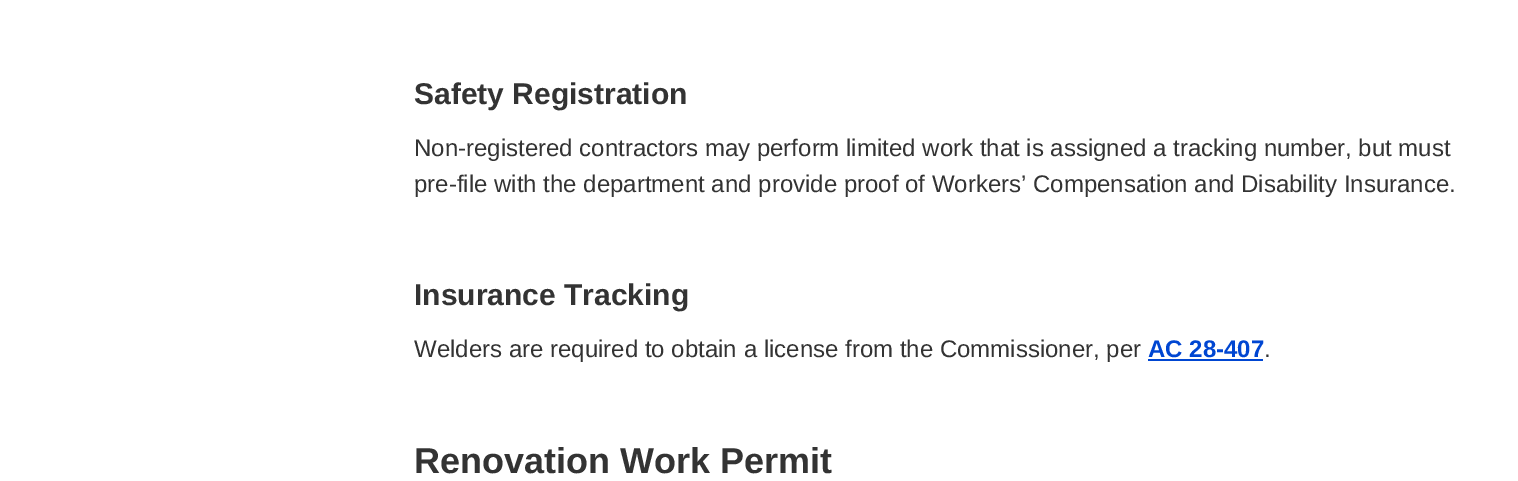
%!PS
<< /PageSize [1518 481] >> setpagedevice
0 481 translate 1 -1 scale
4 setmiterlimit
1 setgray
0 0 1518 481 rectfill
/LiberationSans-Bold [30 0 0 -30 0 0] selectfont
0.2 setgray
414 104 moveto (Safety Registration) show
/LiberationSans-Regular [24 0 0 -24 0 0] selectfont
414 156 moveto (Non-registered contractors may perform limited work that is assigned a tracking number, but must) show
414 192 moveto (pre-file with the department and provide proof of Workers’ Compensation and Disability Insurance.) show
/LiberationSans-Bold [30 0 0 -30 0 0] selectfont
414 305 moveto (Insurance Tracking) show
/LiberationSans-Regular [24 0 0 -24 0 0] selectfont
414 357 moveto (Welders are required to obtain a license from the Commissioner, per) show
/LiberationSans-Bold [24 0 0 -24 0 0] selectfont
0 0.275 0.824 setrgbcolor
1148 357 moveto (AC 28-407) show
1148 359 115 2 rectfill
/LiberationSans-Regular [24 0 0 -24 0 0] selectfont
0.2 setgray
1264 357 moveto (.) show
/LiberationSans-Bold [36 0 0 -36 0 0] selectfont
414 473 moveto (Renovation Work Permit) show
showpage
